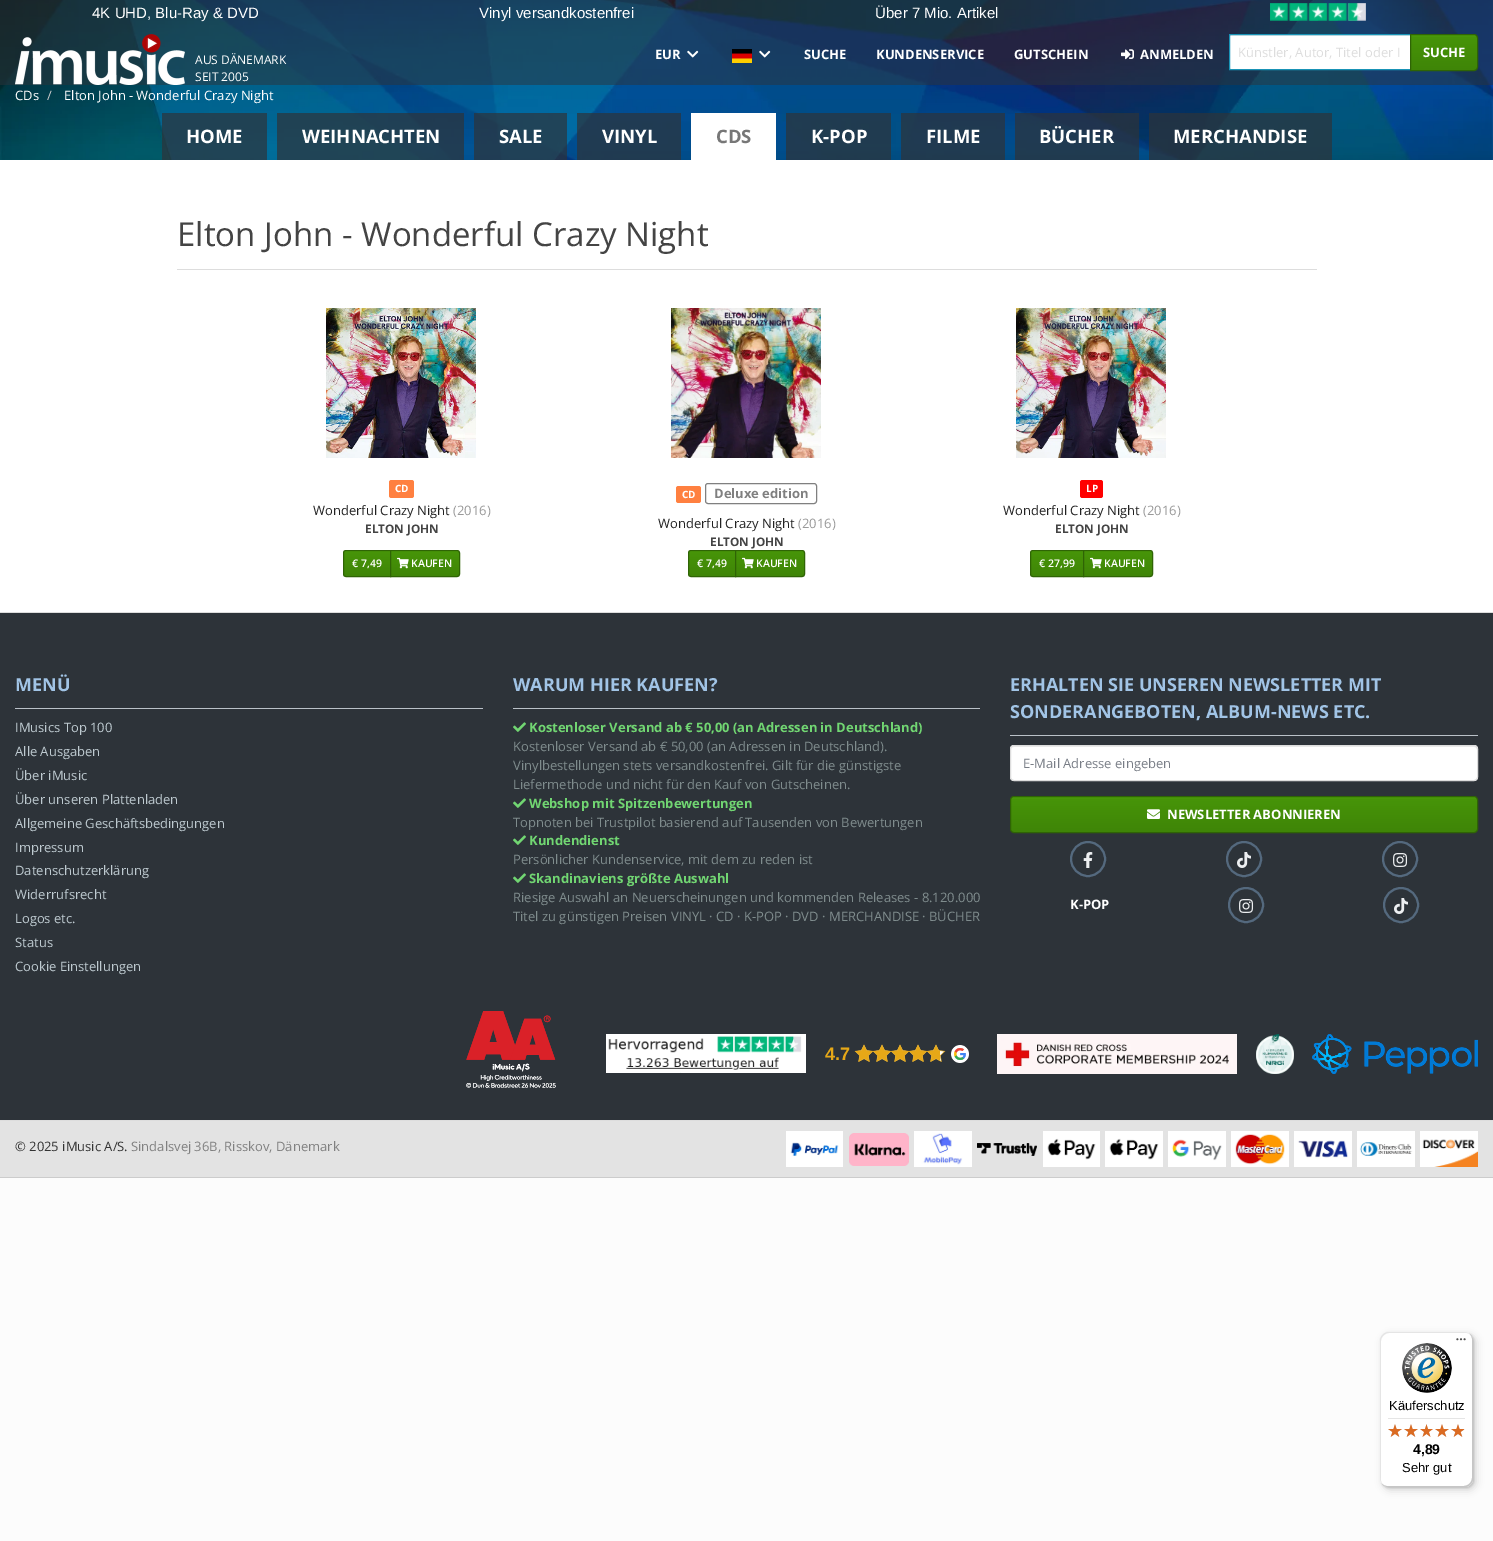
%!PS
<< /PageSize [1493 1541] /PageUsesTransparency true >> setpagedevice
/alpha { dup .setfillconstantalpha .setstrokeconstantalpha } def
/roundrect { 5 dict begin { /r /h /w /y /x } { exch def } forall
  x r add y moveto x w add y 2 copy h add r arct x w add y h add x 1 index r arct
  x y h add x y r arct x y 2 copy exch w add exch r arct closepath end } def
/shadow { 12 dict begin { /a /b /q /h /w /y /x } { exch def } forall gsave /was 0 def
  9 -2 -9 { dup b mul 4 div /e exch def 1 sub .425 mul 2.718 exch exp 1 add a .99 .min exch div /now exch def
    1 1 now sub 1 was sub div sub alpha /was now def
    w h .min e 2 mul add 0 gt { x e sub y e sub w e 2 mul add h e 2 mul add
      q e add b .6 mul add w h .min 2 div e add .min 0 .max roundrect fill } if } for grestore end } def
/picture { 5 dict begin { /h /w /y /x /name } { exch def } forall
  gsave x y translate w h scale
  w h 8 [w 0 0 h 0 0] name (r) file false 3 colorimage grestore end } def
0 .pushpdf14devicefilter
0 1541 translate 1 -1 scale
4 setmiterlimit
0.988 setgray
0 0 1493 1541 rectfill
(img1.rgb) 0 0 1493 160 picture
0.5 alpha
0.176 0.2 0.224 setrgbcolor
0 0 1493 85 rectfill
/LiberationSans-Regular [15 0 0 -15 0 0] selectfont
1 alpha
1 setgray
92 18 moveto (4K UHD, Blu-Ray & DVD) show
479 18 moveto (Vinyl versandkostenfrei) show
875 18 moveto (Über 7 Mio. Artikel) show
(img2.rgb) 1270 3 96 18 picture
(img3.rgb) 15 34 170 51 picture
/OpenSans-Regular [12 0 0 -12 0 0] selectfont
195 64 moveto (AUS DÄNEMARK) show
195 81 moveto (SEIT 2005) show
/OpenSans-Bold [13 0 0 -13 0 0] selectfont
655 59 moveto (EUR) show
(img4.rgb) 687 50 12 8 picture
(img5.rgb) 732 49 20 14 picture
(img6.rgb) 759 50 12 8 picture
804 59 moveto (SUCHE) show
876 59 moveto (KUNDENSERVICE) show
1014 59 moveto (GUTSCHEIN) show
(img7.rgb) 1121 49 13 11 picture
1140 59 moveto (ANMELDEN) show
newpath 1233 34 moveto 1411 34 lineto 1411 70 lineto 1233 70 lineto 1231 70 1229 68 1229 66 curveto 1229 38 lineto 1229 36 1231 34 1233 34 curveto closepath fill
0.07 alpha
0 setgray
1230 35 180 1 rectfill
1 alpha
0.098 0.576 0.714 setrgbcolor
1229.5 34.5 181 35 rectstroke
/OpenSans-Regular [13 0 0 -13 0 0] selectfont
0.867 setgray
1238 57 moveto (Künstler, Autor, Titel oder I) show
gsave newpath 1411 35 moveto 1477 35 lineto 1477 70 lineto 1411 70 lineto closepath clip newpath
<< /ShadingType 2 /ColorSpace /DeviceRGB /Coords [1444 35 1444 70] /Extend [true true] /Function << /FunctionType 3 /Domain [0 1] /Functions [<< /FunctionType 2 /Domain [0 1] /C0 [0.302 0.639 0.035] /C1 [0.275 0.58 0.031] /N 1 >> << /FunctionType 2 /Domain [0 1] /C0 [0.275 0.58 0.031] /C1 [0.247 0.522 0.027] /N 1 >>] /Bounds [0.06] /Encode [0 1 0 1] >> >> shfill grestore
0.184 0.392 0.02 setrgbcolor
newpath 1410.5 34.5 moveto 1474 34.5 lineto 1476 34.5 1477.5 36 1477.5 38 curveto 1477.5 67 lineto 1477.5 69 1476 70.5 1474 70.5 curveto 1410.5 70.5 lineto closepath stroke
/OpenSans-Bold [13 0 0 -13 0 0] selectfont
1 setgray
1423 57 moveto (SUCHE) show
/OpenSans-Regular [13 0 0 -13 0 0] selectfont
15 100 moveto (CDs) show
0.8 setgray
47 100 moveto (/) show
1 setgray
64 100 moveto (Elton John - Wonderful Crazy Night) show
0.7 alpha
0.176 0.2 0.224 setrgbcolor
162 113 105 47 rectfill
/OpenSans-Bold [18.5 0 0 -18.5 0 0] selectfont
1 alpha
1 setgray
186 143 moveto (HOME) show
0.7 alpha
0.176 0.2 0.224 setrgbcolor
277 113 187 47 rectfill
1 alpha
1 setgray
302 143 moveto (WEIHNACHTEN) show
0.7 alpha
0.176 0.2 0.224 setrgbcolor
474 113 93 47 rectfill
1 alpha
1 setgray
499 143 moveto (SALE) show
0.7 alpha
0.176 0.2 0.224 setrgbcolor
577 113 104 47 rectfill
1 alpha
1 setgray
602 143 moveto (VINYL) show
691 113 85 47 rectfill
0.467 setgray
716 143 moveto (CDS) show
0.7 alpha
0.176 0.2 0.224 setrgbcolor
786 113 105 47 rectfill
1 alpha
1 setgray
811 143 moveto (K-POP) show
0.7 alpha
0.176 0.2 0.224 setrgbcolor
901 113 104 47 rectfill
1 alpha
1 setgray
926 143 moveto (FILME) show
0.7 alpha
0.176 0.2 0.224 setrgbcolor
1015 113 124 47 rectfill
1 alpha
1 setgray
1039 143 moveto (BÜCHER) show
0.7 alpha
0.176 0.2 0.224 setrgbcolor
1149 113 183 47 rectfill
1 alpha
1 setgray
1173 143 moveto (MERCHANDISE) show
0 160 1493 452 rectfill
0.867 setgray
177 269 1140 1 rectfill
/OpenSans-Regular [33 0 0 -33 0 0] selectfont
0.267 setgray
177 246 moveto (Elton John - Wonderful Crazy Night) show
(img8.rgb) 326 308 150 150 picture
1 0.502 0.251 setrgbcolor
389 480 25 18 2.5 roundrect fill
/OpenSans-Bold [10 0 0 -10 0 0] selectfont
1 setgray
395 492 moveto (CD) show
/OpenSans-Regular [13 0 0 -13 0 0] selectfont
0.133 setgray
313 515 moveto (Wonderful Crazy Night) show
0.6 setgray
453 515 moveto (\(2016\)) show
/OpenSans-Bold [11.75 0 0 -11.75 0 0] selectfont
0.267 setgray
365 533 moveto (ELTON JOHN) show
gsave newpath 344 551 moveto 390 551 lineto 390 576 lineto 344 576 lineto closepath clip newpath
<< /ShadingType 2 /ColorSpace /DeviceRGB /Coords [367 551 367 576] /Extend [true true] /Function << /FunctionType 3 /Domain [0 1] /Functions [<< /FunctionType 2 /Domain [0 1] /C0 [0.302 0.639 0.035] /C1 [0.275 0.58 0.031] /N 1 >> << /FunctionType 2 /Domain [0 1] /C0 [0.275 0.58 0.031] /C1 [0.247 0.522 0.027] /N 1 >>] /Bounds [0.06] /Encode [0 1 0 1] >> >> shfill grestore
0.184 0.392 0.02 setrgbcolor
newpath 346 550.5 moveto 390.5 550.5 lineto 390.5 576.5 lineto 346 576.5 lineto 344.5 576.5 343.5 575.5 343.5 574 curveto 343.5 553 lineto 343.5 551.5 344.5 550.5 346 550.5 curveto closepath stroke
/OpenSans-SemiBold [10.5 0 0 -10.5 0 0] selectfont
1 setgray
352 567 moveto (€ 7,49) show
gsave newpath 391 551 moveto 459 551 lineto 459 576 lineto 391 576 lineto closepath clip newpath
<< /ShadingType 2 /ColorSpace /DeviceRGB /Coords [425 551 425 576] /Extend [true true] /Function << /FunctionType 3 /Domain [0 1] /Functions [<< /FunctionType 2 /Domain [0 1] /C0 [0.302 0.639 0.035] /C1 [0.275 0.58 0.031] /N 1 >> << /FunctionType 2 /Domain [0 1] /C0 [0.275 0.58 0.031] /C1 [0.247 0.522 0.027] /N 1 >>] /Bounds [0.06] /Encode [0 1 0 1] >> >> shfill grestore
0.184 0.392 0.02 setrgbcolor
newpath 390.5 550.5 moveto 457 550.5 lineto 458.5 550.5 459.5 551.5 459.5 553 curveto 459.5 574 lineto 459.5 575.5 458.5 576.5 457 576.5 curveto 390.5 576.5 lineto closepath stroke
(img9.rgb) 397 557 12 12 picture
1 setgray
411 567 moveto (KAUFEN) show
(img10.rgb) 671 308 150 150 picture
1 0.502 0.251 setrgbcolor
676 486 25 17 2.5 roundrect fill
/OpenSans-Bold [10 0 0 -10 0 0] selectfont
1 setgray
682 498 moveto (CD) show
0.502 setgray
705.5 483.5 111 20 2.5 roundrect stroke
/OpenSans-Bold [13 0 0 -13 0 0] selectfont
714 498 moveto (Deluxe edition) show
/OpenSans-Regular [13 0 0 -13 0 0] selectfont
0.133 setgray
658 528 moveto (Wonderful Crazy Night) show
0.6 setgray
798 528 moveto (\(2016\)) show
/OpenSans-Bold [11.75 0 0 -11.75 0 0] selectfont
0.267 setgray
710 546 moveto (ELTON JOHN) show
gsave newpath 689 551 moveto 735 551 lineto 735 576 lineto 689 576 lineto closepath clip newpath
<< /ShadingType 2 /ColorSpace /DeviceRGB /Coords [712 551 712 576] /Extend [true true] /Function << /FunctionType 3 /Domain [0 1] /Functions [<< /FunctionType 2 /Domain [0 1] /C0 [0.302 0.639 0.035] /C1 [0.275 0.58 0.031] /N 1 >> << /FunctionType 2 /Domain [0 1] /C0 [0.275 0.58 0.031] /C1 [0.247 0.522 0.027] /N 1 >>] /Bounds [0.06] /Encode [0 1 0 1] >> >> shfill grestore
0.184 0.392 0.02 setrgbcolor
newpath 691 550.5 moveto 735.5 550.5 lineto 735.5 576.5 lineto 691 576.5 lineto 689.5 576.5 688.5 575.5 688.5 574 curveto 688.5 553 lineto 688.5 551.5 689.5 550.5 691 550.5 curveto closepath stroke
/OpenSans-SemiBold [10.5 0 0 -10.5 0 0] selectfont
1 setgray
697 567 moveto (€ 7,49) show
gsave newpath 736 551 moveto 804 551 lineto 804 576 lineto 736 576 lineto closepath clip newpath
<< /ShadingType 2 /ColorSpace /DeviceRGB /Coords [770 551 770 576] /Extend [true true] /Function << /FunctionType 3 /Domain [0 1] /Functions [<< /FunctionType 2 /Domain [0 1] /C0 [0.302 0.639 0.035] /C1 [0.275 0.58 0.031] /N 1 >> << /FunctionType 2 /Domain [0 1] /C0 [0.275 0.58 0.031] /C1 [0.247 0.522 0.027] /N 1 >>] /Bounds [0.06] /Encode [0 1 0 1] >> >> shfill grestore
0.184 0.392 0.02 setrgbcolor
newpath 735.5 550.5 moveto 802 550.5 lineto 803.5 550.5 804.5 551.5 804.5 553 curveto 804.5 574 lineto 804.5 575.5 803.5 576.5 802 576.5 curveto 735.5 576.5 lineto closepath stroke
(img9.rgb) 742 557 12 12 picture
1 setgray
756 567 moveto (KAUFEN) show
(img11.rgb) 1016 308 150 150 picture
1 0 0 setrgbcolor
1080 480 23 18 2.5 roundrect fill
/OpenSans-Bold [10 0 0 -10 0 0] selectfont
1 setgray
1086 492 moveto (LP) show
/OpenSans-Regular [13 0 0 -13 0 0] selectfont
0.133 setgray
1003 515 moveto (Wonderful Crazy Night) show
0.6 setgray
1143 515 moveto (\(2016\)) show
/OpenSans-Bold [11.75 0 0 -11.75 0 0] selectfont
0.267 setgray
1055 533 moveto (ELTON JOHN) show
gsave newpath 1031 551 moveto 1083 551 lineto 1083 576 lineto 1031 576 lineto closepath clip newpath
<< /ShadingType 2 /ColorSpace /DeviceRGB /Coords [1057 551 1057 576] /Extend [true true] /Function << /FunctionType 3 /Domain [0 1] /Functions [<< /FunctionType 2 /Domain [0 1] /C0 [0.302 0.639 0.035] /C1 [0.275 0.58 0.031] /N 1 >> << /FunctionType 2 /Domain [0 1] /C0 [0.275 0.58 0.031] /C1 [0.247 0.522 0.027] /N 1 >>] /Bounds [0.06] /Encode [0 1 0 1] >> >> shfill grestore
0.184 0.392 0.02 setrgbcolor
newpath 1033 550.5 moveto 1083.5 550.5 lineto 1083.5 576.5 lineto 1033 576.5 lineto 1031.5 576.5 1030.5 575.5 1030.5 574 curveto 1030.5 553 lineto 1030.5 551.5 1031.5 550.5 1033 550.5 curveto closepath stroke
/OpenSans-SemiBold [10.5 0 0 -10.5 0 0] selectfont
1 setgray
1039 567 moveto (€ 27,99) show
gsave newpath 1084 551 moveto 1152 551 lineto 1152 576 lineto 1084 576 lineto closepath clip newpath
<< /ShadingType 2 /ColorSpace /DeviceRGB /Coords [1118 551 1118 576] /Extend [true true] /Function << /FunctionType 3 /Domain [0 1] /Functions [<< /FunctionType 2 /Domain [0 1] /C0 [0.302 0.639 0.035] /C1 [0.275 0.58 0.031] /N 1 >> << /FunctionType 2 /Domain [0 1] /C0 [0.275 0.58 0.031] /C1 [0.247 0.522 0.027] /N 1 >>] /Bounds [0.06] /Encode [0 1 0 1] >> >> shfill grestore
0.184 0.392 0.02 setrgbcolor
newpath 1083.5 550.5 moveto 1150 550.5 lineto 1151.5 550.5 1152.5 551.5 1152.5 553 curveto 1152.5 574 lineto 1152.5 575.5 1151.5 576.5 1150 576.5 curveto 1083.5 576.5 lineto closepath stroke
(img9.rgb) 1090 557 12 12 picture
1 setgray
1104 567 moveto (KAUFEN) show
0.176 0.2 0.224 setrgbcolor
0 613 1493 507 rectfill
0.867 setgray
0 612 1493 1 rectfill
0.8 setgray
0 1177 1493 1 rectfill
0.729 0.757 0.784 setrgbcolor
15 708 468 1 rectfill
/OpenSans-Bold [18 0 0 -18 0 0] selectfont
0.631 0.769 0.902 setrgbcolor
15 691 moveto (MENÜ) show
/OpenSans-Regular [13 0 0 -13 0 0] selectfont
0.745 0.792 0.816 setrgbcolor
15 732 moveto (IMusics Top 100) show
15 756 moveto (Alle Ausgaben) show
15 780 moveto (Über iMusic) show
15 804 moveto (Über unseren Plattenladen) show
15 828 moveto (Allgemeine Geschäftsbedingungen) show
15 852 moveto (Impressum) show
15 875 moveto (Datenschutzerklärung) show
15 899 moveto (Widerrufsrecht) show
15 923 moveto (Logos etc.) show
15 947 moveto (Status) show
15 971 moveto (Cookie Einstellungen) show
0.729 0.757 0.784 setrgbcolor
513 708 467 1 rectfill
/OpenSans-Bold [18 0 0 -18 0 0] selectfont
0.631 0.769 0.902 setrgbcolor
513 691 moveto (WARUM HIER KAUFEN?) show
(img12.rgb) 513 722 13 10 picture
/OpenSans-Bold [13 0 0 -13 0 0] selectfont
0.443 0.839 0.447 setrgbcolor
529 732 moveto (Kostenloser Versand ab € 50,00 \(an Adressen in Deutschland\)) show
/OpenSans-Regular [13 0 0 -13 0 0] selectfont
0.498 0.549 0.553 setrgbcolor
513 751 moveto (Kostenloser Versand ab € 50,00 \(an Adressen in Deutschland\).) show
513 770 moveto (Vinylbestellungen stets versandkostenfrei. Gilt für die günstigste) show
513 789 moveto (Liefermethode und nicht für den Kauf von Gutscheinen.) show
(img12.rgb) 513 798 13 10 picture
/OpenSans-Bold [13 0 0 -13 0 0] selectfont
0.443 0.839 0.447 setrgbcolor
529 808 moveto (Webshop mit Spitzenbewertungen) show
/OpenSans-Regular [13 0 0 -13 0 0] selectfont
0.498 0.549 0.553 setrgbcolor
513 827 moveto (Topnoten bei Trustpilot basierend auf Tausenden von Bewertungen) show
(img12.rgb) 513 835 13 10 picture
/OpenSans-Bold [13 0 0 -13 0 0] selectfont
0.443 0.839 0.447 setrgbcolor
529 845 moveto (Kundendienst) show
/OpenSans-Regular [13 0 0 -13 0 0] selectfont
0.498 0.549 0.553 setrgbcolor
513 864 moveto (Persönlicher Kundenservice, mit dem zu reden ist) show
(img12.rgb) 513 873 13 10 picture
/OpenSans-Bold [13 0 0 -13 0 0] selectfont
0.443 0.839 0.447 setrgbcolor
529 883 moveto (Skandinaviens größte Auswahl) show
/OpenSans-Regular [13 0 0 -13 0 0] selectfont
0.498 0.549 0.553 setrgbcolor
513 902 moveto (Riesige Auswahl an Neuerscheinungen und kommenden Releases - 8.120.000) show
513 921 moveto (Titel zu günstigen Preisen VINYL · CD · K-POP · DVD · MERCHANDISE · BÜCHER) show
0.729 0.757 0.784 setrgbcolor
1010 735 468 1 rectfill
/OpenSans-Bold [18 0 0 -18 0 0] selectfont
0.631 0.769 0.902 setrgbcolor
1010 691 moveto (ERHALTEN SIE UNSEREN NEWSLETTER MIT) show
1010 718 moveto (SONDERANGEBOTEN, ALBUM-NEWS ETC.) show
1 setgray
1010 745 468 36 4 roundrect fill
0.925 setgray
newpath 1014 747 moveto 1474 747 lineto 1476 747 1477 748 1477 750 curveto 1477 749 lineto 1477 747 1476 746 1474 746 curveto 1014 746 lineto 1012 746 1011 747 1011 749 curveto 1011 750 lineto 1011 748 1012 747 1014 747 curveto closepath fill
0.867 setgray
1010.5 745.5 467 35 3.5 roundrect stroke
/OpenSans-Regular [13 0 0 -13 0 0] selectfont
0.471 0.49 0.525 setrgbcolor
1023 768 moveto (E-Mail Adresse eingeben) show
gsave
1010 796 468 37 4 roundrect clip newpath
gsave newpath 1011 797 moveto 1477 797 lineto 1477 832 lineto 1011 832 lineto closepath clip newpath
<< /ShadingType 2 /ColorSpace /DeviceRGB /Coords [1244 797 1244 832] /Extend [true true] /Function << /FunctionType 3 /Domain [0 1] /Functions [<< /FunctionType 2 /Domain [0 1] /C0 [0.302 0.639 0.035] /C1 [0.275 0.58 0.031] /N 1 >> << /FunctionType 2 /Domain [0 1] /C0 [0.275 0.58 0.031] /C1 [0.247 0.522 0.027] /N 1 >>] /Bounds [0.06] /Encode [0 1 0 1] >> >> shfill grestore
grestore
0.184 0.392 0.02 setrgbcolor
1010.5 796.5 467 36 3.5 roundrect stroke
(img13.rgb) 1147 809 13 10 picture
/OpenSans-Bold [13 0 0 -13 0 0] selectfont
1 setgray
1167 819 moveto (NEWSLETTER ABONNIEREN) show
0.329 0.412 0.494 setrgbcolor
2 setlinewidth
newpath 1088 859 17 0 360 arc closepath stroke
(img14.rgb) 1083 852 10 16 picture
newpath 1244 859 17 0 360 arc closepath stroke
(img15.rgb) 1237 852 14 16 picture
newpath 1400 859 17 0 360 arc closepath stroke
(img16.rgb) 1393 853 15 14 picture
1 setgray
1070 909 moveto (K-POP) show
0.329 0.412 0.494 setrgbcolor
newpath 1246 905 17 0 360 arc closepath stroke
(img16.rgb) 1239 899 15 14 picture
newpath 1401 905 17 0 360 arc closepath stroke
(img15.rgb) 1394 898 14 16 picture
(img17.rgb) 466 1011 90 77 picture
(img18.rgb) 466 1011 90 77 picture
1 setgray
606 1034 200 39 rectfill
(img19.rgb) 997 1034 240 40 picture
(img20.rgb) 1256 1034 38 40 picture
(img21.rgb) 1256 1034 38 40 picture
(img22.rgb) 1312 1034 166 40 picture
(img23.rgb) 608 1036 194 37 picture
(img24.rgb) 854 1044 92 18 picture
/LiberationSans-Bold [18 0 0 -18 0 0] selectfont
0.902 0.659 0.09 setrgbcolor
825 1060 moveto (4.7) show
(img25.rgb) 951 1045 18 18 picture
(img26.rgb) 1312 1034 166 40 picture
0.89 setgray
0 1121 1493 56 rectfill
0.867 setgray
0 1120 1493 1 rectfill
/OpenSans-Regular [13 0 0 -13 0 0] selectfont
0.2 setgray
15 1151 moveto (© 2025 iMusic A/S.) show
0.502 setgray
131 1151 moveto (Sindalsvej 36B, Risskov, Dänemark) show
(img27.rgb) 786 1131 57 36 picture
(img28.rgb) 849 1133 60 33 picture
(img29.rgb) 849 1133 60 33 picture
(img30.rgb) 914 1131 58 36 picture
(img31.rgb) 977 1143 60 13 picture
(img32.rgb) 977 1143 60 13 picture
(img33.rgb) 1043 1131 57 36 picture
(img34.rgb) 1105 1131 58 36 picture
(img35.rgb) 1168 1131 58 36 picture
(img36.rgb) 1231 1131 58 36 picture
(img37.rgb) 1294 1131 58 36 picture
(img38.rgb) 1357 1131 58 36 picture
(img39.rgb) 1420 1131 58 36 picture
0 setgray
1383 1335 93 155 8 4 0.15 shadow
1381 1333 93 155 8 1 0.15 shadow
1 setgray
1380 1332 93 155 8 roundrect fill
0.898 setgray
newpath 1389 1333 moveto 1466 1333 lineto 1468 1333 1470 1334 1472 1336 curveto 1470 1334 1468 1332 1465 1332 curveto 1388 1332 lineto 1384 1332 1380 1336 1380 1340 curveto 1380 1479 lineto 1380 1482 1382 1484 1384 1486 curveto 1382 1484 1381 1482 1381 1480 curveto 1381 1341 lineto 1381 1337 1385 1333 1389 1333 curveto closepath fill
0.8 setgray
newpath 1381 1483 moveto 1383 1485 1385 1487 1388 1487 curveto 1465 1487 lineto 1469 1487 1473 1483 1473 1479 curveto 1473 1340 lineto 1473 1337 1471 1335 1469 1333 curveto 1471 1335 1472 1337 1472 1339 curveto 1472 1478 lineto 1472 1482 1468 1486 1464 1486 curveto 1387 1486 lineto 1385 1486 1383 1485 1381 1483 curveto closepath fill
0.2 alpha
0.196 setgray
newpath 1382 1484 moveto 1383 1486 1386 1487 1388 1487 curveto 1465 1487 lineto 1469 1487 1473 1483 1473 1479 curveto 1473 1340 lineto 1473 1338 1472 1335 1470 1334 curveto 1471 1335 1472 1337 1472 1339 curveto 1472 1478 lineto 1472 1483 1469 1486 1464 1486 curveto 1387 1486 lineto 1385 1486 1383 1485 1382 1484 curveto closepath fill
0.3 alpha
1 setgray
newpath 1472 1340 moveto 1472 1335 1469 1332 1464 1332 curveto 1465 1332 lineto 1469 1332 1473 1336 1473 1340 curveto 1473 1479 lineto 1473 1483 1469 1487 1465 1487 curveto 1388 1487 lineto 1384 1487 1380 1483 1380 1479 curveto 1380 1478 lineto 1380 1483 1383 1486 1388 1486 curveto 1464 1486 lineto 1469 1486 1472 1483 1472 1478 curveto closepath fill
1 alpha
(img40.rgb) 1456 1338 10 3 picture
(img41.rgb) 1402 1343 50 50 picture
/LiberationSans-Regular [13 0 0 -13 0 0] selectfont
0 setgray
1389 1410 moveto (Käuferschutz) show
0.898 setgray
1388 1418 77 1 rectfill
(img42.rgb) 1388 1424 14 13 picture
(img42.rgb) 1404 1424 14 13 picture
(img43.rgb) 1420 1424 13 13 picture
(img42.rgb) 1435 1424 14 13 picture
(img42.rgb) 1451 1424 14 13 picture
(img44.rgb) 1388 1424 14 13 picture
(img44.rgb) 1404 1424 14 13 picture
(img45.rgb) 1420 1424 13 13 picture
(img44.rgb) 1435 1424 14 13 picture
(img46.rgb) 1451 1424 13 13 picture
/LiberationSans-Bold [14 0 0 -14 0 0] selectfont
0 setgray
1413 1454 moveto (4,89) show
/LiberationSans-Regular [13 0 0 -13 0 0] selectfont
1402 1472 moveto (Sehr gut) show
.poppdf14devicefilter showpage
